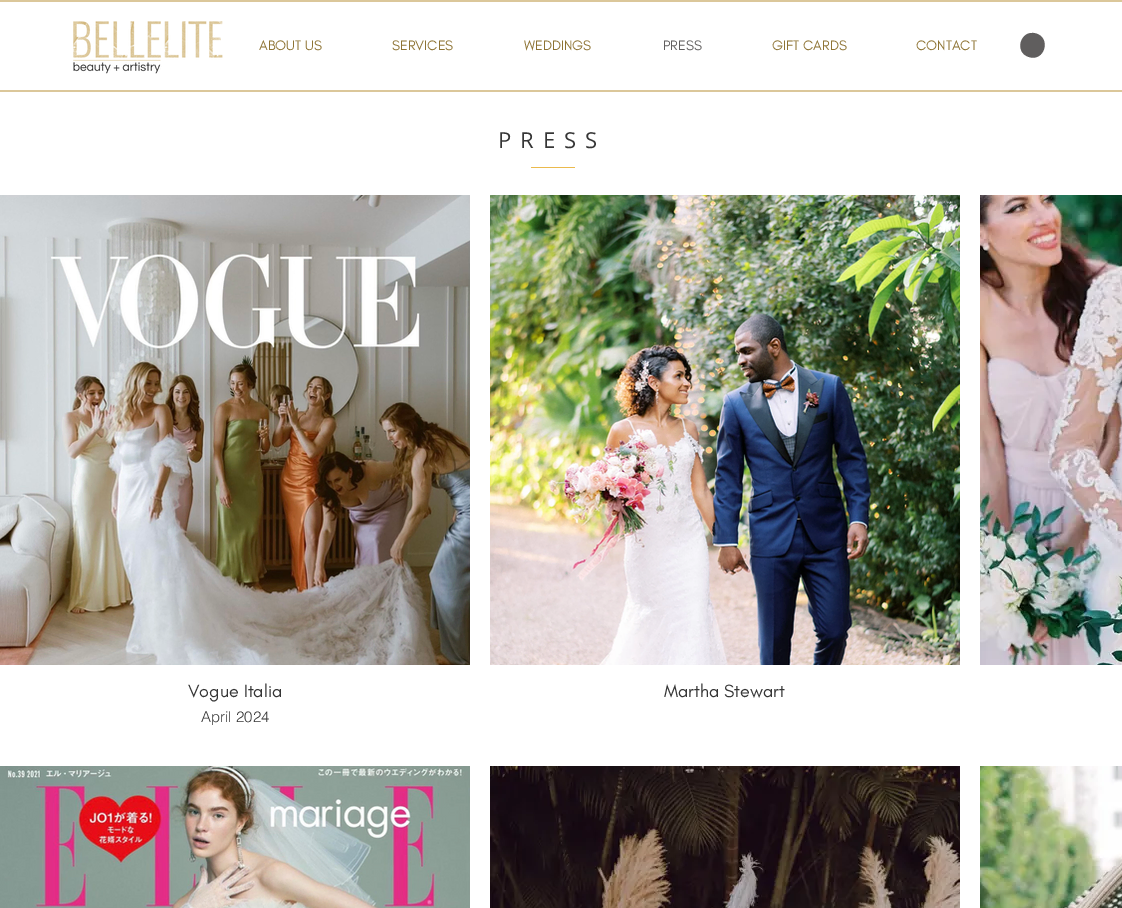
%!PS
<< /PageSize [1122 908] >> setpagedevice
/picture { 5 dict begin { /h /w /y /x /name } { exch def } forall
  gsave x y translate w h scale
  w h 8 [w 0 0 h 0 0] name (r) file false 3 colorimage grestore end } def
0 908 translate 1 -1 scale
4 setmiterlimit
1 setgray
0 0 1122 908 rectfill
0.859 0.78 0.604 setrgbcolor
0 0 1122 2 rectfill
0 90 1122 2 rectfill
(img1.rgb) 73 21 150 53 picture
/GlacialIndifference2-Regular [14 0 0 -14 0 0] selectfont
0.557 0.451 0.2 setrgbcolor
259 50 moveto (ABOUT US) show
392 50 moveto (SERVICES) show
524 50 moveto (WEDDINGS) show
0.376 0.369 0.369 setrgbcolor
663 50 moveto (PRESS) show
0.557 0.451 0.2 setrgbcolor
772 50 moveto (GIFT CARDS) show
916 50 moveto (CONTACT) show
0.376 0.369 0.369 setrgbcolor
newpath 1036 33.5 moveto 1051.5 38 1044.5 62 1029 57 curveto 1013.5 52.5 1020.5 29 1036 33.5 curveto closepath fill
/OpenSans-Regular [22 0 0 -22 0 0] selectfont
0.212 setgray
498 148 moveto 9 0 (PRESS) ashow
0.922 0.729 0.302 setrgbcolor
531 167 44 1 rectfill
(img2.rgb) 980 195 142 470 picture
(img3.rgb) 0 195 470 470 picture
/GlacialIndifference-Regular [18 0 0 -18 0 0] selectfont
0.212 setgray
188 697 moveto (Vogue Italia) show
/helvetica-Light [15 0 0 -15 0 0] selectfont
201 722 moveto (April 2024) show
(img4.rgb) 490 195 470 470 picture
/GlacialIndifference-Regular [18 0 0 -18 0 0] selectfont
664 697 moveto (Martha Stewart) show
(img5.rgb) 0 766 470 142 picture
(img6.rgb) 490 766 470 142 picture
(img7.rgb) 980 766 142 142 picture
showpage
